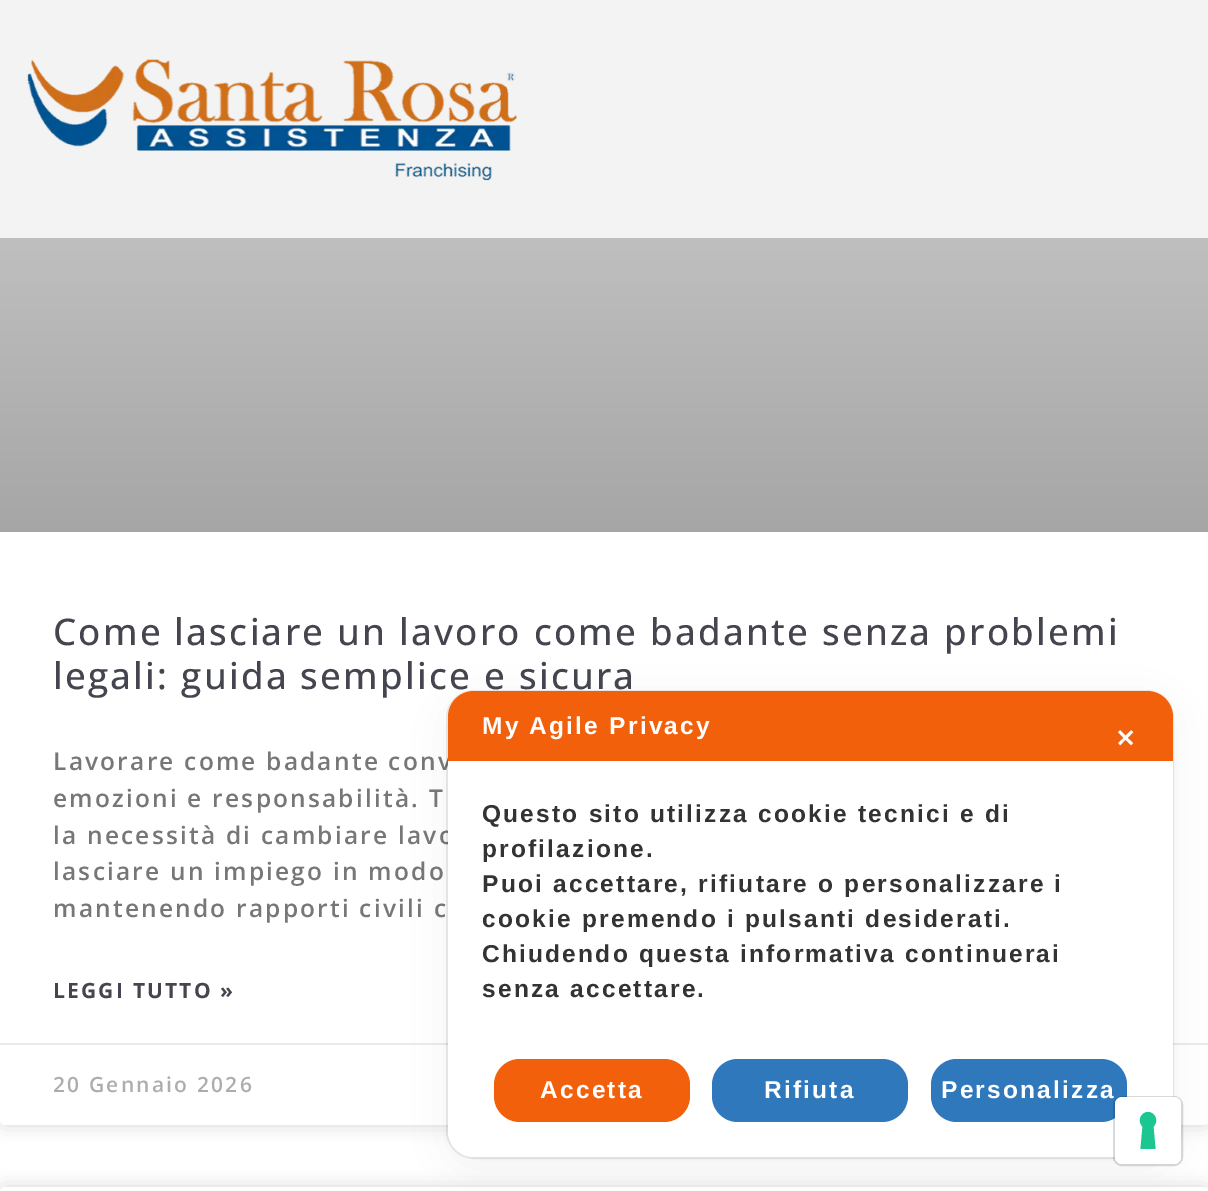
%!PS
<< /PageSize [1208 1191] /PageUsesTransparency true >> setpagedevice
/alpha { dup .setfillconstantalpha .setstrokeconstantalpha } def
/roundrect { 5 dict begin { /r /h /w /y /x } { exch def } forall
  x r add y moveto x w add y 2 copy h add r arct x w add y h add x 1 index r arct
  x y h add x y r arct x y 2 copy exch w add exch r arct closepath end } def
/shadow { 12 dict begin { /a /b /q /h /w /y /x } { exch def } forall gsave /was 0 def
  9 -2 -9 { dup b mul 4 div /e exch def 1 sub .425 mul 2.718 exch exp 1 add a .99 .min exch div /now exch def
    1 1 now sub 1 was sub div sub alpha /was now def
    w h .min e 2 mul add 0 gt { x e sub y e sub w e 2 mul add h e 2 mul add
      q e add b .6 mul add w h .min 2 div e add .min 0 .max roundrect fill } if } for grestore end } def
/picture { 5 dict begin { /h /w /y /x /name } { exch def } forall
  gsave x y translate w h scale
  w h 8 [w 0 0 h 0 0] name (r) file false 3 colorimage grestore end } def
0 .pushpdf14devicefilter
0 1191 translate 1 -1 scale
4 setmiterlimit
1 setgray
0 0 1208 1191 rectfill
0 setgray
0 -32 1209 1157 5 9 0.15 shadow
1 setgray
0 -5 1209 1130 5 roundrect fill
0.953 setgray
0 0 1208 238 rectfill
(img1.rgb) 27 59 490 122 picture
gsave newpath 0 238 moveto 1208 238 lineto 1208 532 lineto 0 532 lineto closepath clip newpath
<< /ShadingType 2 /ColorSpace /DeviceRGB /Coords [605 532 605 -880] /Extend [true true] /Function << /FunctionType 3 /Domain [0 1] /Functions [<< /FunctionType 2 /Domain [0 1] /C0 [0.651 0.651 0.651] /C1 [1 1 1] /N 1 >> << /FunctionType 2 /Domain [0 1] /C0 [1 1 1] /C1 [1 1 1] /N 1 >>] /Bounds [0.75] /Encode [0 1 0 1] >> >> shfill grestore
/OpenSans-Medium [36.75 0 0 -36.75 0 0] selectfont
0.271 0.271 0.31 setrgbcolor
53 645 moveto 2.2 0 (Come lasciare un lavoro come badante senza problemi) ashow
53 689 moveto 2.2 0 (legali: guida semplice e sicura) ashow
/OpenSans-SemiBold [24.5 0 0 -24.5 0 0] selectfont
0.467 setgray
53 770 moveto 2.2 0 (Lavorare come badante conv) ashow
53 807 moveto 2.2 0 (emozioni e responsabilità. T) ashow
53 844 moveto 2.2 0 (la necessità di cambiare lavo) ashow
53 880 moveto 2.2 0 (lasciare un impiego in modo) ashow
53 917 moveto 2.2 0 (mantenendo rapporti civili c) ashow
/OpenSans-Bold [21 0 0 -21 0 0] selectfont
0.271 0.271 0.31 setrgbcolor
53 998 moveto 2.2 0 (LEGGI TUTTO ») ashow
0.918 setgray
0 1043 1208 2 rectfill
/OpenSans-SemiBold [21 0 0 -21 0 0] selectfont
0.678 setgray
53 1092 moveto 2.2 0 (20 Gennaio 2026) ashow
0 setgray
0 1187 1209 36 5 9 0.15 shadow
1 setgray
0 1187 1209 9 5 roundrect fill
0.08 alpha
0 setgray
2 setlinewidth
447 691 726 467 27 roundrect stroke
1 alpha
448 702 725 465 26 21 0.05 shadow
1 setgray
448 691 725 466 26 roundrect fill
0.949 0.376 0.047 setrgbcolor
newpath 474 691 moveto 1147 691 lineto 1161.5 691 1173 702.5 1173 717 curveto 1173 761 lineto 448 761 lineto 448 717 lineto 448 702.5 459.5 691 474 691 curveto closepath fill
/LiberationSans-Bold [24.5 0 0 -24.5 0 0] selectfont
1 setgray
482 734 moveto 2.2 0 (My Agile Privacy) ashow
/DejaVuSans-Bold [24.5 0 0 -24.5 0 0] selectfont
1115 747 moveto 2.2 0 (✕) ashow
/LiberationSans-Bold [24.5 0 0 -24.5 0 0] selectfont
0.2 setgray
482 822 moveto 2.2 0 (Questo sito utilizza cookie tecnici e di) ashow
482 857 moveto 2.2 0 (profilazione.) ashow
482 892 moveto 2.2 0 (Puoi accettare, rifiutare o personalizzare i) ashow
482 927 moveto 2.2 0 (cookie premendo i pulsanti desiderati.) ashow
482 962 moveto 2.2 0 (Chiudendo questa informativa continuerai) ashow
482 997 moveto 2.2 0 (senza accettare.) ashow
0.949 0.376 0.047 setrgbcolor
494 1059 196 63 26 roundrect fill
1 setgray
540 1098 moveto 2.2 0 (Accetta) ashow
0.184 0.471 0.737 setrgbcolor
712 1059 196 63 26 roundrect fill
1 setgray
764 1098 moveto 2.2 0 (Rifiuta) ashow
0.184 0.471 0.737 setrgbcolor
931 1059 196 63 26 roundrect fill
1 setgray
941 1098 moveto 2.2 0 (Personalizza) ashow
0.15 alpha
0 setgray
1114 1097 68 68 8 roundrect stroke
1 alpha
1 setgray
1115 1097 66 67 7 roundrect fill
0.11 0.776 0.569 setrgbcolor
newpath 1148 1112 moveto 1155.5 1112 1159 1121.5 1153.5 1126.5 curveto 1155.5 1149 lineto 1140.5 1149 lineto 1142.5 1126.5 lineto 1137 1121.5 1140.5 1112 1148 1112 curveto closepath eofill
.poppdf14devicefilter showpage
